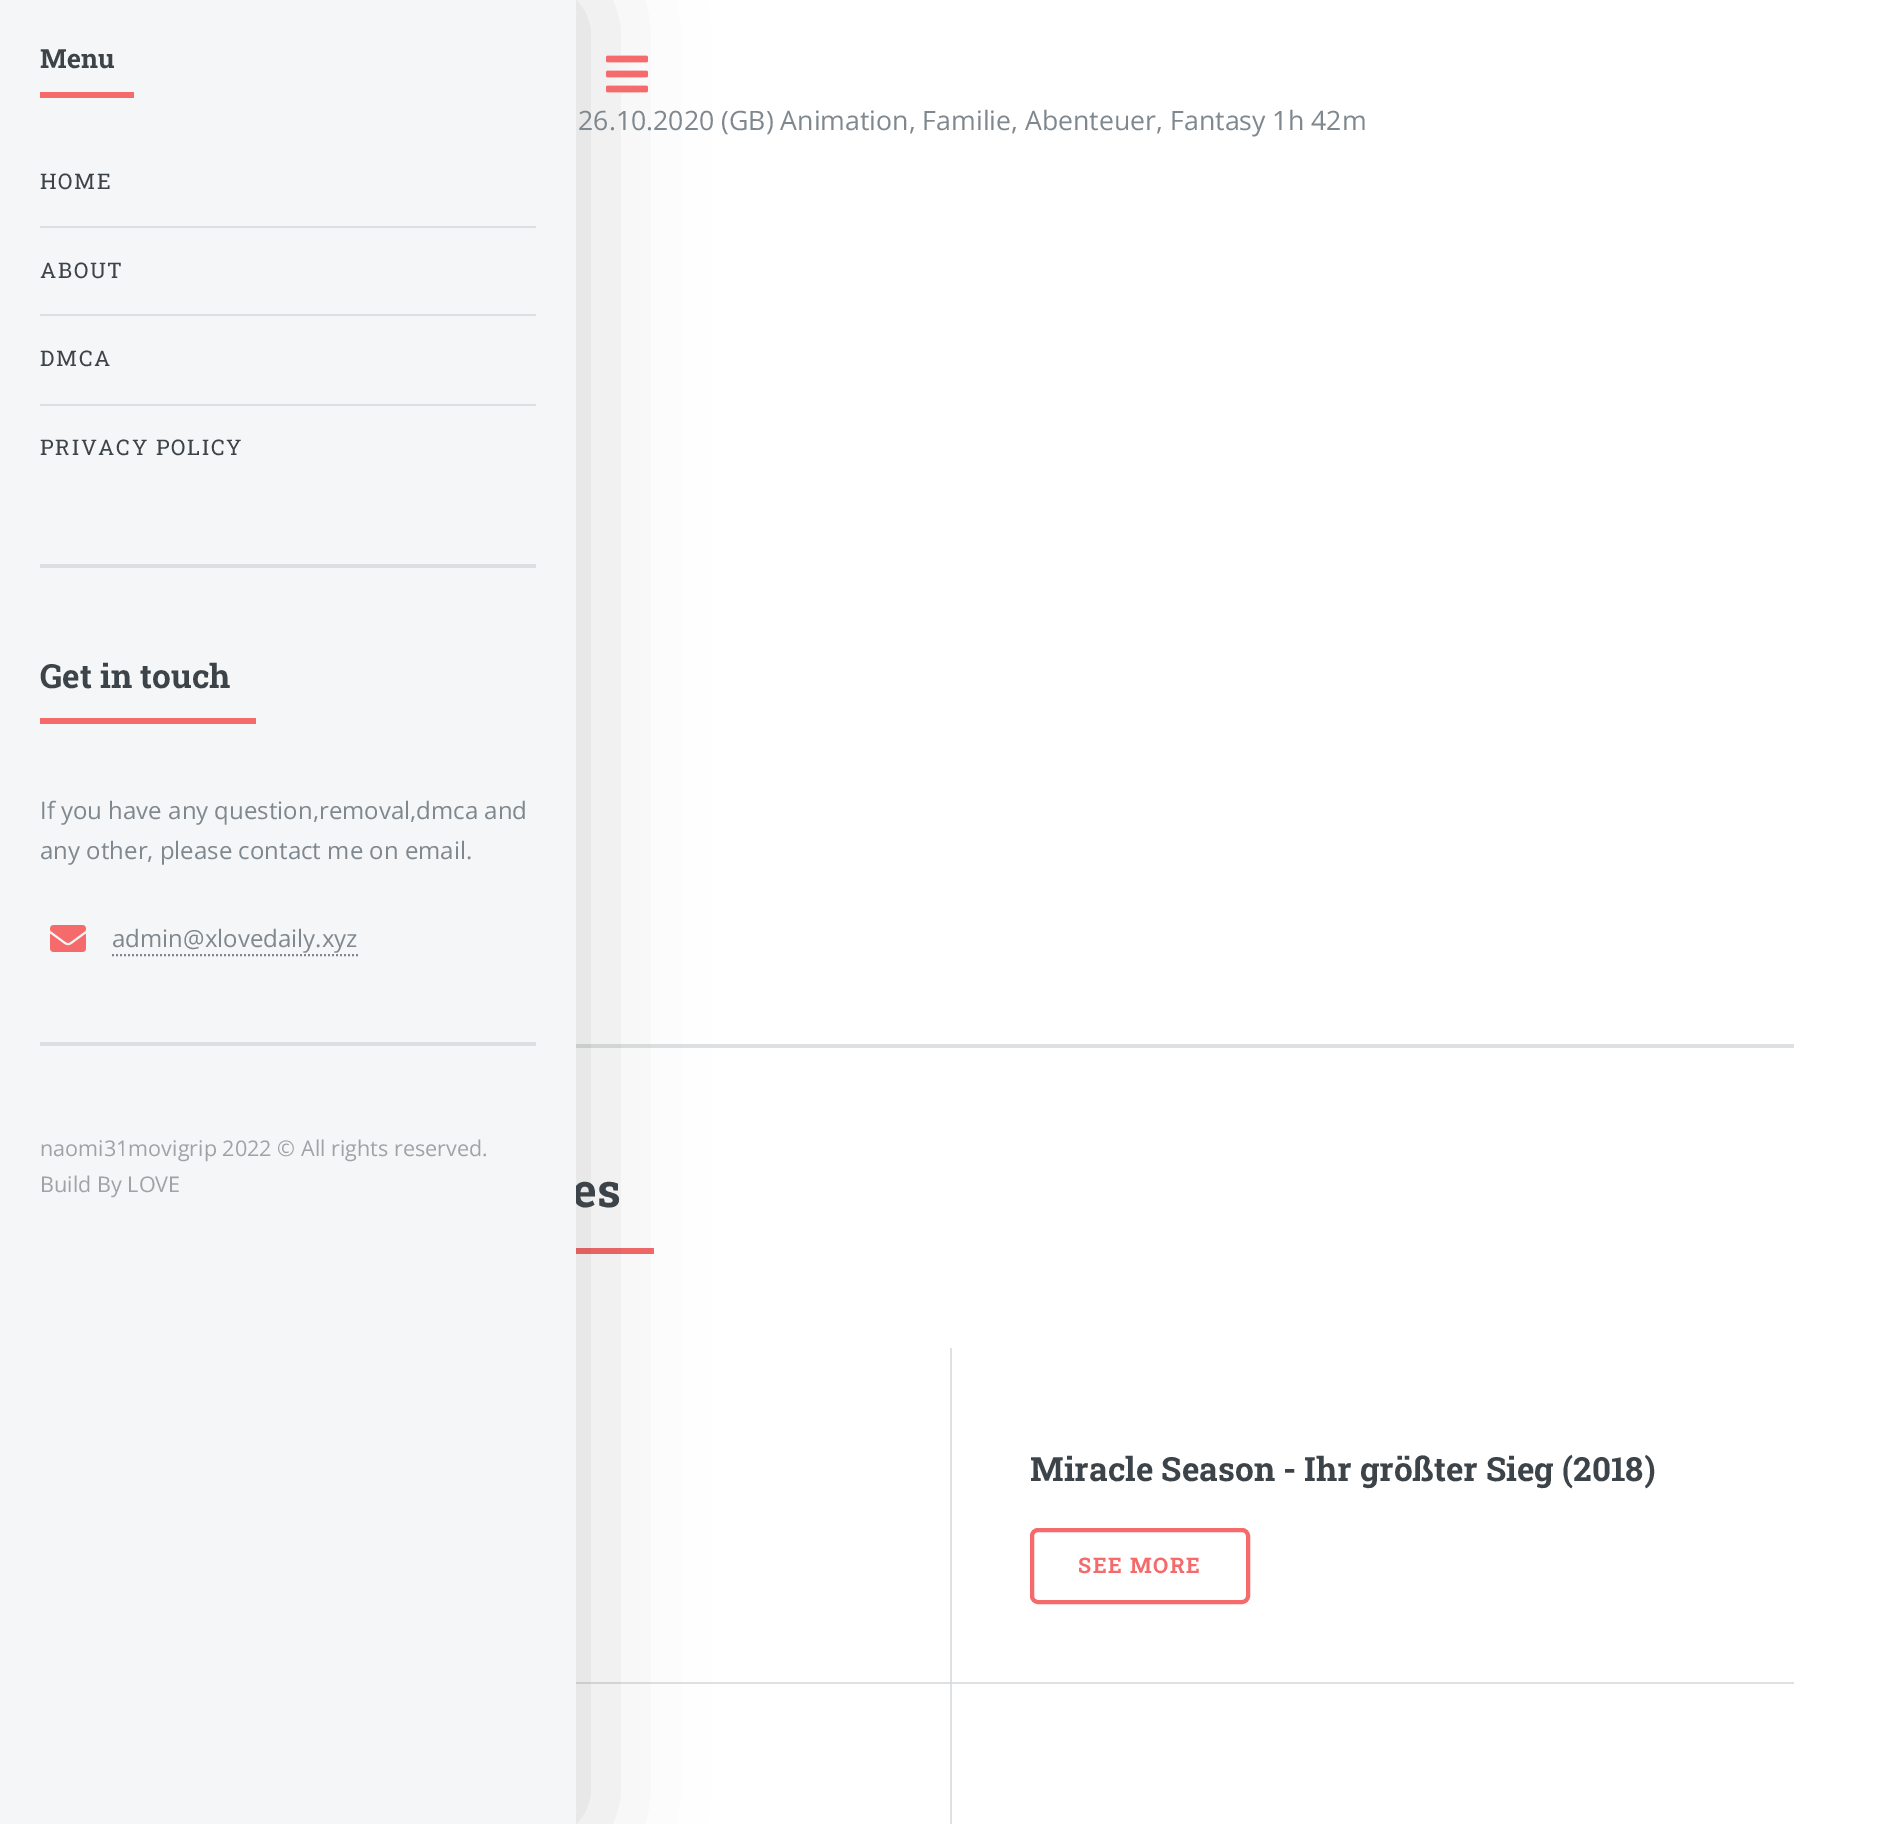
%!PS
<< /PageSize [1900 1824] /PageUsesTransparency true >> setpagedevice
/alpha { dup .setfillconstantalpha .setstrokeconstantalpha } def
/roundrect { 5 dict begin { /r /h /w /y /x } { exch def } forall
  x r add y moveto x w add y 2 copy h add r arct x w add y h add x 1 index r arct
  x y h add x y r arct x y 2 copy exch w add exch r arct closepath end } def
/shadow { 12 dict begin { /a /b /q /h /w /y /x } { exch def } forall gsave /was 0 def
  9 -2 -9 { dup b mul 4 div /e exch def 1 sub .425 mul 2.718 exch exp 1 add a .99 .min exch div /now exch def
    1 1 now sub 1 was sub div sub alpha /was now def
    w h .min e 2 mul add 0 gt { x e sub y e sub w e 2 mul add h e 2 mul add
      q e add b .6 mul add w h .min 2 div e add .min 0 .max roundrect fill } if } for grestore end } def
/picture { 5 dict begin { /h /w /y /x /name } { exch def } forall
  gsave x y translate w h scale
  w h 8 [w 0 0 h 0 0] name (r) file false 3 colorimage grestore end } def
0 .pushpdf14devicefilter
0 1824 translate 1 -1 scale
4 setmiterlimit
1 setgray
0 0 1900 1824 rectfill
0.867 0.882 0.89 setrgbcolor
576 1682 1218 2 rectfill
576 1044 1218 4 rectfill
0.961 0.416 0.416 setrgbcolor
576 1248 78 6 rectfill
0 setgray
0 0 576 1824 0 60 0.18 shadow
/RobotoSlab-Bold [47 0 0 -47 0 0] selectfont
0.239 0.267 0.286 setrgbcolor
572 1207 moveto (es) show
0.961 0.965 0.969 setrgbcolor
0 0 576 1824 rectfill
0.859 0.875 0.882 setrgbcolor
40 564 496 4 rectfill
0.961 0.416 0.416 setrgbcolor
40 92 94 6 rectfill
/RobotoSlab-Bold [26.5 0 0 -26.5 0 0] selectfont
0.239 0.267 0.286 setrgbcolor
40 68 moveto (Menu) show
/RobotoSlab-Regular [21.6 0 0 -21.6 0 0] selectfont
40 189 moveto 1.75 0 (HOME) ashow
0.859 0.875 0.882 setrgbcolor
40 226 496 2 rectfill
0.239 0.267 0.286 setrgbcolor
40 278 moveto 1.75 0 (ABOUT) ashow
0.859 0.875 0.882 setrgbcolor
40 314 496 2 rectfill
0.239 0.267 0.286 setrgbcolor
40 366 moveto 1.75 0 (DMCA) ashow
0.859 0.875 0.882 setrgbcolor
40 404 496 2 rectfill
0.239 0.267 0.286 setrgbcolor
40 455 moveto 1.75 0 (PRIVACY POLICY) ashow
0.859 0.875 0.882 setrgbcolor
40 1042 496 4 rectfill
0.961 0.416 0.416 setrgbcolor
40 718 216 6 rectfill
/RobotoSlab-Bold [33.3 0 0 -33.3 0 0] selectfont
0.239 0.267 0.286 setrgbcolor
40 688 moveto (Get in touch) show
/OpenSans-Regular [24 0 0 -24 0 0] selectfont
0.498 0.533 0.561 setrgbcolor
40 819 moveto (If you have any question,removal,dmca and) show
40 859 moveto (any other, please contact me on email.) show
(img1.rgb) 50 925 36 27 picture
112 947 moveto (admin@xlovedaily.xyz) show
2 setlinewidth
[2 2] 0 setdash
newpath 112 955 moveto 358 955 lineto stroke
/OpenSans-Regular [21.6 0 0 -21.6 0 0] selectfont
0.624 0.639 0.651 setrgbcolor
40 1156 moveto (naomi31movigrip 2022 © All rights reserved.) show
40 1192 moveto (Build By LOVE) show
(img2.rgb) 606 55 42 38 picture
/OpenSans-Regular [26.7 0 0 -26.7 0 0] selectfont
0.498 0.533 0.561 setrgbcolor
578 130 moveto (26.10.2020 \(GB\) Animation, Familie, Abenteuer, Fantasy 1h 42m) show
0.867 0.882 0.89 setrgbcolor
950 1348 2 476 rectfill
0.835 0.855 0.863 setrgbcolor
950 1682 2 2 rectfill
/RobotoSlab-Bold [33.3 0 0 -33.3 0 0] selectfont
0.239 0.267 0.286 setrgbcolor
1030 1481 moveto (Miracle Season - Ihr größter Sieg \(2018\)) show
0.961 0.416 0.416 setrgbcolor
4 setlinewidth
[] 0 setdash
1032 1530 216 72 6 roundrect stroke
/RobotoSlab-Bold [21.5 0 0 -21.5 0 0] selectfont
1078 1573 moveto 1.5 0 (SEE MORE) ashow
.poppdf14devicefilter showpage
